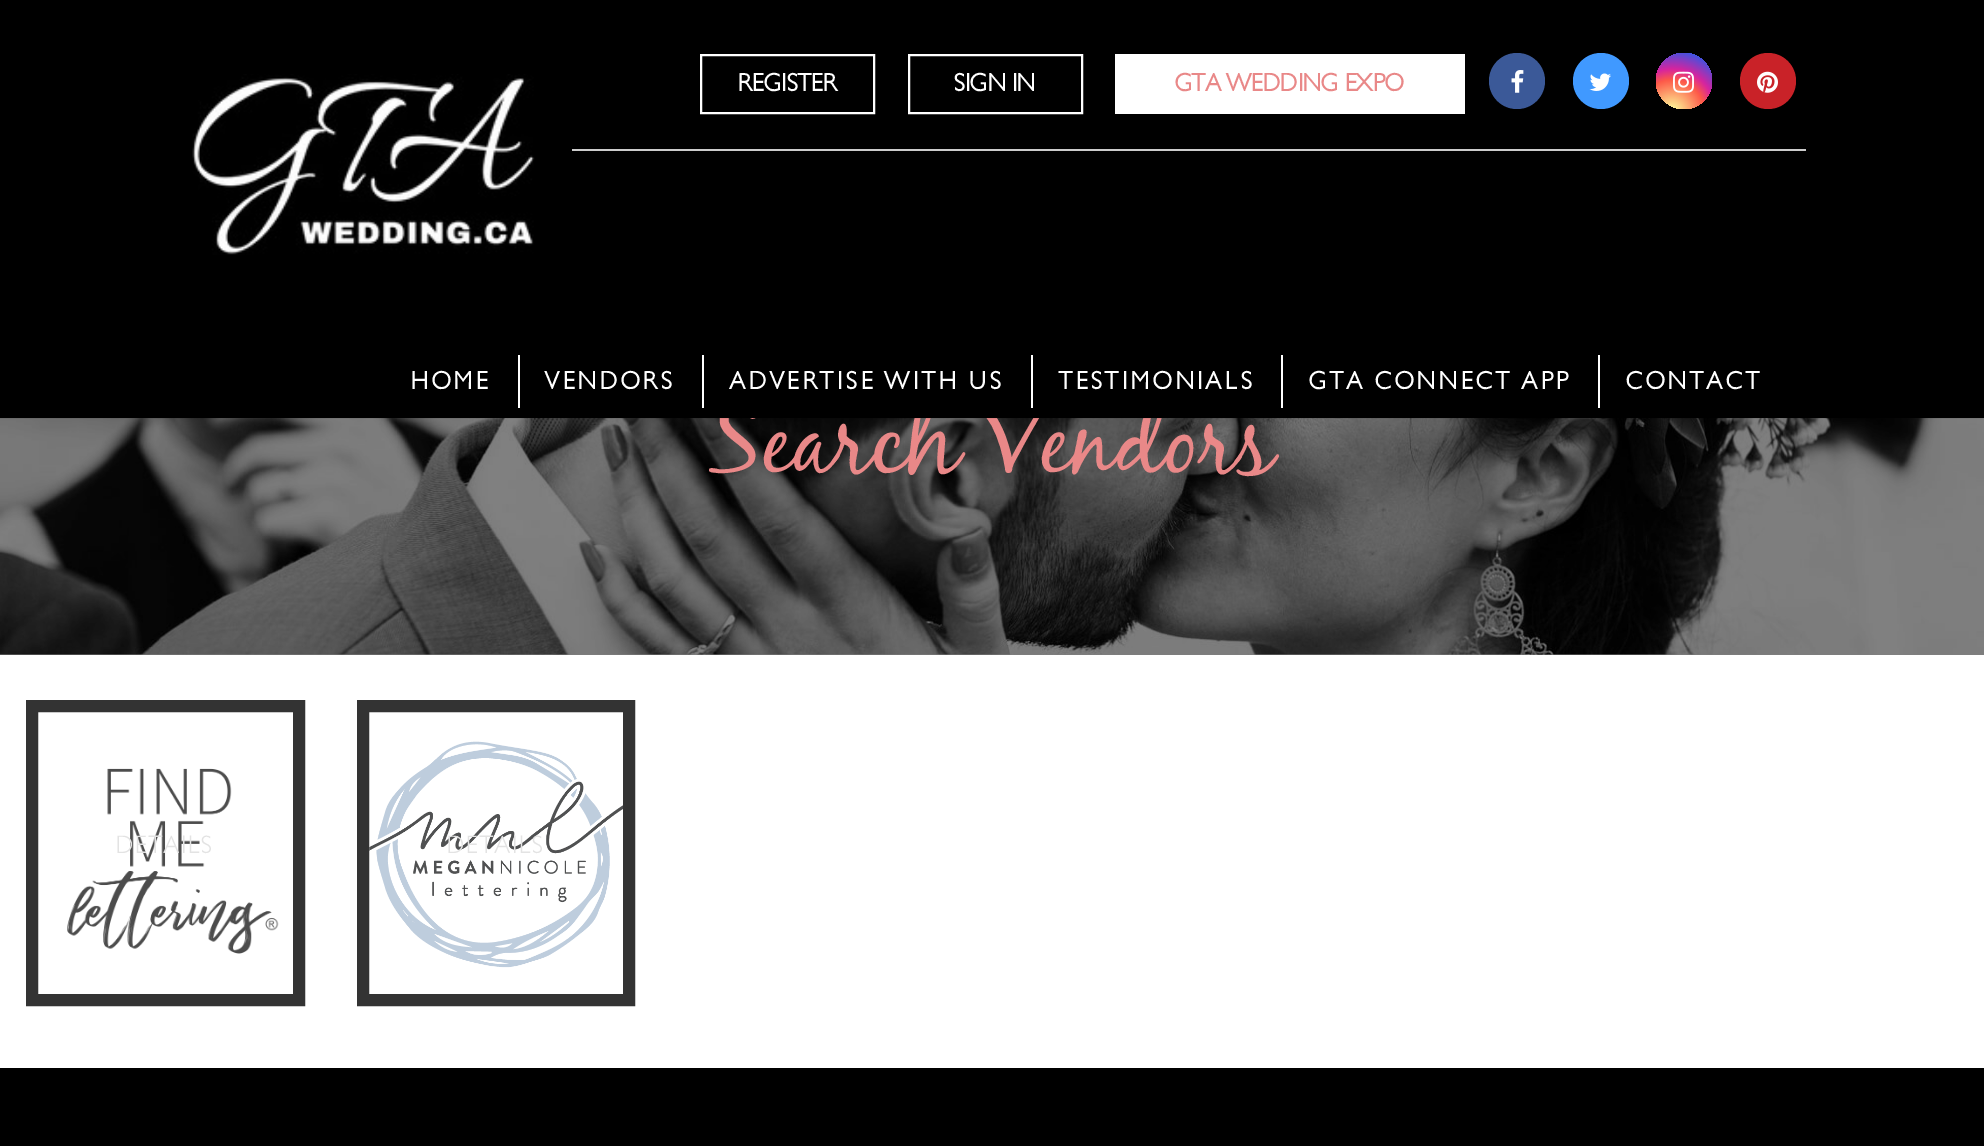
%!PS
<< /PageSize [1984 1146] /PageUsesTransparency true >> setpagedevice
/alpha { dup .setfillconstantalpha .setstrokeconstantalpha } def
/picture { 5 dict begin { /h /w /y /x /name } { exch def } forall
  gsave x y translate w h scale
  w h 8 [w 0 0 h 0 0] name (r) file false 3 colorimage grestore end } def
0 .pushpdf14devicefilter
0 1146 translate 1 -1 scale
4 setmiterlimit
1 setgray
0 0 1984 1146 rectfill
0.502 setgray
0 654 1984 1 rectfill
(img6.rgb) 0 418 1984 237 picture
/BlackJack-Black [96.25 0 0 -96.25 0 0] selectfont
0.914 0.533 0.533 setrgbcolor
709 471 moveto (Search Vendors) show
0 setgray
0 0 1984 418 rectfill
0.05 alpha
0 418 1984 1 rectfill
1 alpha
(img1.rgb) 192 74 343 181 picture
0.8 setgray
572 149 1234 2 rectfill
1 setgray
2 setlinewidth
701 55 173 58 rectstroke
/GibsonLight-Bold [24.5 0 0 -24.5 0 0] selectfont
738 91 moveto (REGISTER) show
909 55 173 58 rectstroke
954 91 moveto (SIGN IN) show
1115 54 350 60 rectfill
0.914 0.533 0.533 setrgbcolor
1175 91 moveto (GTA WEDDING EXPO) show
0.231 0.349 0.596 setrgbcolor
newpath 1517 81 28 0 360 arc closepath fill
(img2.rgb) 1511 70 13 23 picture
0.251 0.6 1 setrgbcolor
newpath 1601 81 28 0 360 arc closepath fill
(img3.rgb) 1589 73 22 18 picture
gsave newpath 1684 81 28 0 360 arc closepath clip newpath 1672 112 translate 72 72 scale
<< /ShadingType 3 /ColorSpace /DeviceRGB /Coords [0 0 0 0 0 1] /Extend [true true] /Function << /FunctionType 3 /Domain [0 1] /Functions [<< /FunctionType 2 /Domain [0 1] /C0 [0.992 0.957 0.592] /C1 [0.992 0.957 0.592] /N 1 >> << /FunctionType 2 /Domain [0 1] /C0 [0.992 0.957 0.592] /C1 [0.992 0.349 0.286] /N 1 >> << /FunctionType 2 /Domain [0 1] /C0 [0.992 0.349 0.286] /C1 [0.839 0.141 0.624] /N 1 >> << /FunctionType 2 /Domain [0 1] /C0 [0.839 0.141 0.624] /C1 [0.157 0.353 0.922] /N 1 >> << /FunctionType 2 /Domain [0 1] /C0 [0.157 0.353 0.922] /C1 [0.157 0.353 0.922] /N 1 >>] /Bounds [0.05 0.45 0.6 0.9] /Encode [0 1 0 1 0 1 0 1 0 1] >> >> shfill grestore
(img4.rgb) 1673 71 21 22 picture
0.788 0.133 0.157 setrgbcolor
newpath 1768 81 28 0 360 arc closepath fill
(img5.rgb) 1757 71 21 22 picture
1 setgray
411 389 moveto 3.5 0 (HOME) ashow
518 355 2 53 rectfill
545 389 moveto 3.5 0 (VENDORS) ashow
702 355 2 53 rectfill
730 389 moveto 3.5 0 (ADVERTISE WITH US) ashow
1031 355 2 53 rectfill
1059 389 moveto 3.5 0 (TESTIMONIALS) ashow
1281 355 2 53 rectfill
1309 389 moveto 3.5 0 (GTA CONNECT APP) ashow
1598 355 2 53 rectfill
1626 389 moveto 3.5 0 (CONTACT) ashow
(img7.rgb) 67 768 212 186 picture
0.2 setgray
12 setlinewidth
32 706 267 294 rectstroke
/GibsonLight-Light [24.5 0 0 -24.5 0 0] selectfont
0.89 setgray
116 853 moveto 1.75 0 (DETAILS) ashow
(img8.rgb) 369 741 254 227 picture
0.2 setgray
363 706 266 294 rectstroke
0.89 setgray
447 853 moveto 1.75 0 (DETAILS) ashow
0 setgray
0 1068 1984 78 rectfill
.poppdf14devicefilter showpage
